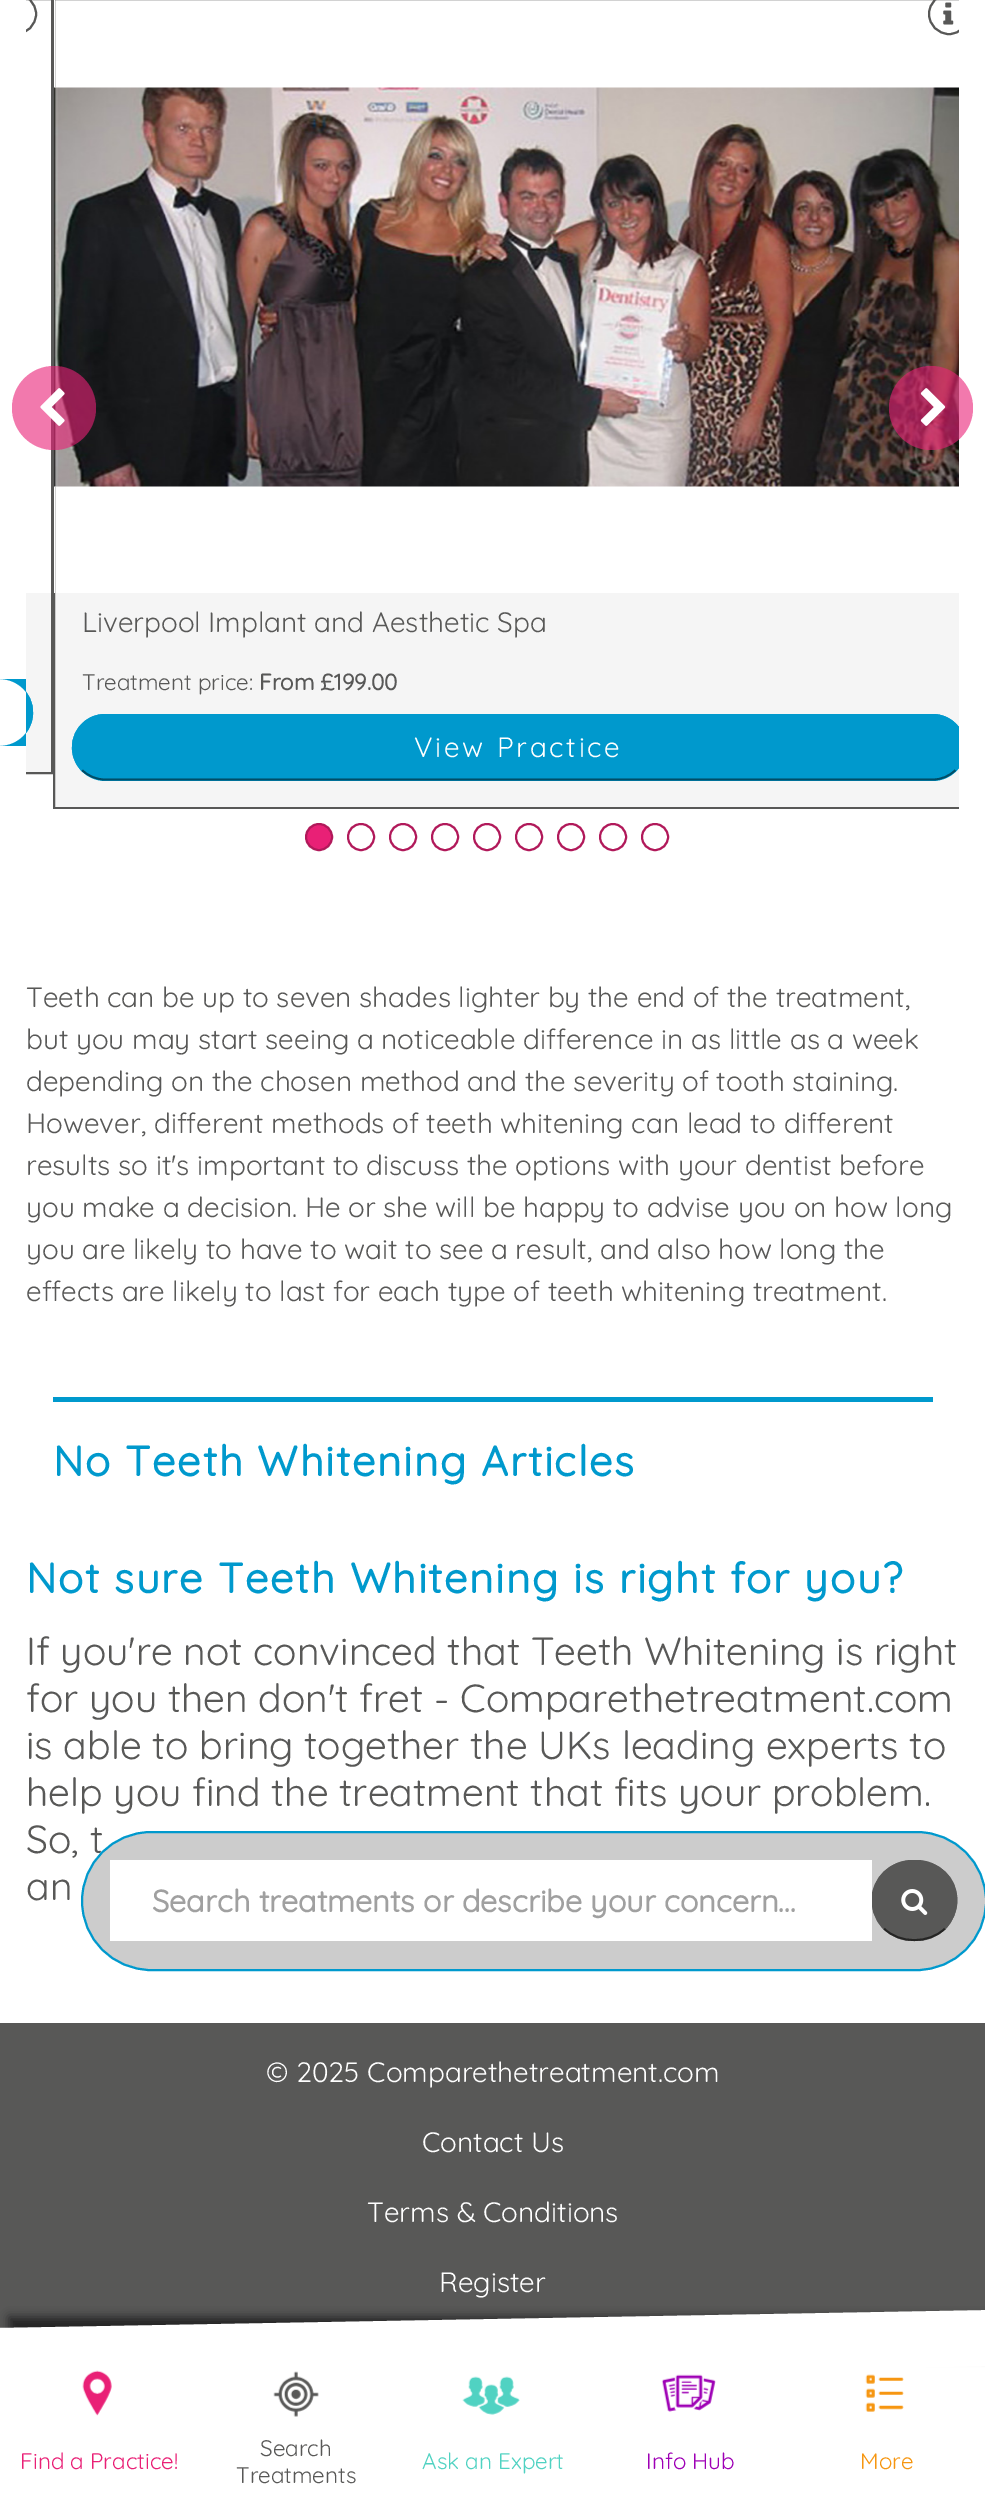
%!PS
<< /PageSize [985 2508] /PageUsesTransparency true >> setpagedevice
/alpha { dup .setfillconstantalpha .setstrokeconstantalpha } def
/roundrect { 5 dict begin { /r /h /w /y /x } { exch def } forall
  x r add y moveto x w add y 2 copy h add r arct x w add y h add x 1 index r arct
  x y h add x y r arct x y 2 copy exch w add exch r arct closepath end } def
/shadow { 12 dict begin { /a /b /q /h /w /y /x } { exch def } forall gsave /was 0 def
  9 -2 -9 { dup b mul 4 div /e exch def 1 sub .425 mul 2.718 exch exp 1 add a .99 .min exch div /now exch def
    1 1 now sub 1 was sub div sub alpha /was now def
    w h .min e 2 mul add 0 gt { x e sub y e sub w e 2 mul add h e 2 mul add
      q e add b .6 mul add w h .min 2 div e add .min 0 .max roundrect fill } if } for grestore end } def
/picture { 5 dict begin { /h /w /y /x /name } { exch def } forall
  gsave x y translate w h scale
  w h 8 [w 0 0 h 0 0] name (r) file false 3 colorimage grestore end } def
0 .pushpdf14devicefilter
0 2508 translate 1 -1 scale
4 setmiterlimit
1 setgray
0 0 985 2508 rectfill
0.961 setgray
26 593 25 179 rectfill
gsave
26 0 933 809 rectclip
0.345 0.345 0.341 setrgbcolor
2 setlinewidth
-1 -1 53 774 rectstroke
grestore
55 593 904 214 rectfill
gsave
26 0 933 809 rectclip
0.345 0.345 0.341 setrgbcolor
2 setlinewidth
54 -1 930 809 rectstroke
grestore
1 setgray
54 0 1 593 rectfill
(img4.rgb) 54 87 905 400 picture
0.6 alpha
0.914 0.125 0.463 setrgbcolor
newpath 54 408 42 0 360 arc closepath fill
1 alpha
(img1.rgb) 40 388 25 38 picture
0.6 alpha
newpath 931 408 42 0 360 arc closepath fill
1 alpha
(img2.rgb) 920 388 26 38 picture
gsave
26 0 933 809 rectclip
0.345 0.345 0.341 setrgbcolor
2 setlinewidth
newpath 16 14 20 0 360 arc closepath stroke
grestore
0 0.6 0.804 setrgbcolor
newpath 26 679 moveto -0.5 679 lineto 18 679 33 694 33 712.5 curveto 33 731 18 746 -0.5 746 curveto 26 746 lineto closepath fill
gsave
26 0 933 809 rectclip
1.8 setlinewidth
newpath -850.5 735 moveto -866.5 719 -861 691 -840 682.5 curveto -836 680.5 -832 680 -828 680 curveto 0 680 lineto 4 680 8.5 680.5 12.5 682.5 curveto 33.5 691 39 719 23 735 curveto stroke
0.345 0.345 0.341 setrgbcolor
2 setlinewidth
newpath 949 14 20 0 360 arc closepath stroke
grestore
(img3.rgb) 943 2 11 23 picture
/Quicksand-Regular [28 0 0 -28 0 0] selectfont
0.345 0.345 0.341 setrgbcolor
82 632 moveto (Liverpool Implant and Aesthetic Spa) show
/Quicksand-Regular [22.5 0 0 -22.5 0 0] selectfont
82 690 moveto (Treatment price:) show
/Quicksand-Bold [22.5 0 0 -22.5 0 0] selectfont
259 690 moveto (From £199.00) show
gsave
26 0 933 809 rectclip
0 0.6 0.804 setrgbcolor
72 714 894 67 33.5 roundrect fill
grestore
0 0.302 0.404 setrgbcolor
1.8 setlinewidth
newpath 955.5 770 moveto 949.5 776 941.5 779.5 933 779.5 curveto 105 779.5 lineto 96.5 779.5 88 776 82 770 curveto stroke
gsave
26 0 933 809 rectclip
0 0.6 0.804 setrgbcolor
newpath 82 770 moveto 66 754 71.5 726 92.5 717.5 curveto 96.5 715.5 101 715 105 715 curveto 933 715 lineto 937 715 941 715.5 945 717.5 curveto 966 726 971.5 754 955.5 770 curveto stroke
grestore
/Quicksand-Regular [28 0 0 -28 0 0] selectfont
1 setgray
414 757 moveto 2.75 0 (View Practice) ashow
0.914 0.125 0.463 setrgbcolor
newpath 319 837 13 0 360 arc closepath gsave fill grestore
0.694 0.098 0.353 setrgbcolor
2 setlinewidth
stroke
newpath 361 837 13 0 360 arc closepath stroke
newpath 403 837 13 0 360 arc closepath stroke
newpath 445 837 13 0 360 arc closepath stroke
newpath 487 837 13 0 360 arc closepath stroke
newpath 529 837 13 0 360 arc closepath stroke
newpath 571 837 13 0 360 arc closepath stroke
newpath 613 837 13 0 360 arc closepath stroke
newpath 655 837 13 0 360 arc closepath stroke
0.345 0.345 0.341 setrgbcolor
26 1007 moveto (Teeth can be up to seven shades lighter by the end of the treatment,) show
26 1049 moveto (but you may start seeing a noticeable difference in as little as a week) show
26 1091 moveto (depending on the chosen method and the severity of tooth staining.) show
26 1133 moveto (However, different methods of teeth whitening can lead to different) show
26 1175 moveto (results so it's important to discuss the options with your dentist before) show
26 1217 moveto (you make a decision. He or she will be happy to advise you on how long) show
26 1259 moveto (you are likely to have to wait to see a result, and also how long the) show
26 1301 moveto (effects are likely to last for each type of teeth whitening treatment.) show
0 0.6 0.804 setrgbcolor
53 1397 880 5 rectfill
/Quicksand-Bold [42 0 0 -42 0 0] selectfont
53 1476 moveto 1.75 0 (No Teeth Whitening Articles) ashow
26 1593 moveto 1.75 0 (Not sure Teeth Whitening is right for you?) ashow
/Quicksand-Regular [39.2 0 0 -39.2 0 0] selectfont
0.345 0.345 0.341 setrgbcolor
26 1665 moveto (If you're not convinced that Teeth Whitening is right) show
26 1712 moveto (for you then don't fret - Comparethetreatment.com) show
26 1759 moveto (is able to bring together the UKs leading experts to) show
26 1806 moveto (help you find the treatment that fits your problem.) show
26 1853 moveto (So, t) show
26 1900 moveto (an) show
0.8 setgray
82 1832 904 138 69 roundrect gsave fill grestore
0 0.6 0.804 setrgbcolor
stroke
0.345 0.345 0.341 setrgbcolor
872 1860 85 81 40.5 roundrect fill
0.145 0.145 0.141 setrgbcolor
1.8 setlinewidth
newpath 945 1928.5 moveto 929 1944 899.5 1944 884 1928.5 curveto stroke
0.345 0.345 0.341 setrgbcolor
newpath 884 1928.5 moveto 874.5 1919 870.5 1905.5 873 1893 curveto 882.5 1846.5 956.5 1852 956.5 1900.5 curveto 956.5 1911 952 1921 945 1928.5 curveto stroke
1 setgray
110 1860 762 81 rectfill
/Quicksand-Bold [30.8 0 0 -30.8 0 0] selectfont
0.627 setgray
152 1912 moveto (Search treatments or describe your concern...) show
(img5.rgb) 901 1889 27 26 picture
0.345 0.345 0.341 setrgbcolor
0 2023 985 305 rectfill
0 setgray
9 2317 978 39 0 5 0.6 shadow
1 setgray
newpath 0 2328 moveto 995 2310 lineto 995 2366 lineto 0 2384 lineto closepath fill
(img6.rgb) 82 2370 30 46 picture
/Quicksand-Regular [22.5 0 0 -22.5 0 0] selectfont
0.914 0.125 0.463 setrgbcolor
20 2469 moveto (Find a Practice!) show
(img7.rgb) 273 2371 46 46 picture
0.345 0.345 0.341 setrgbcolor
260 2456 moveto (Search) show
236 2483 moveto (Treatments) show
(img8.rgb) 462 2376 58 39 picture
0.314 0.824 0.761 setrgbcolor
422 2469 moveto (Ask an Expert) show
(img9.rgb) 661 2374 55 38 picture
0.62 0 0.71 setrgbcolor
646 2469 moveto (Info Hub) show
(img10.rgb) 865 2374 39 38 picture
0.965 0.588 0.067 setrgbcolor
860 2469 moveto (More) show
/Quicksand-Regular [28 0 0 -28 0 0] selectfont
1 setgray
266 2082 moveto (© 2025 Comparethetreatment.com) show
422 2152 moveto (Contact Us) show
367 2222 moveto (Terms & Conditions) show
439 2292 moveto (Register) show
.poppdf14devicefilter showpage
